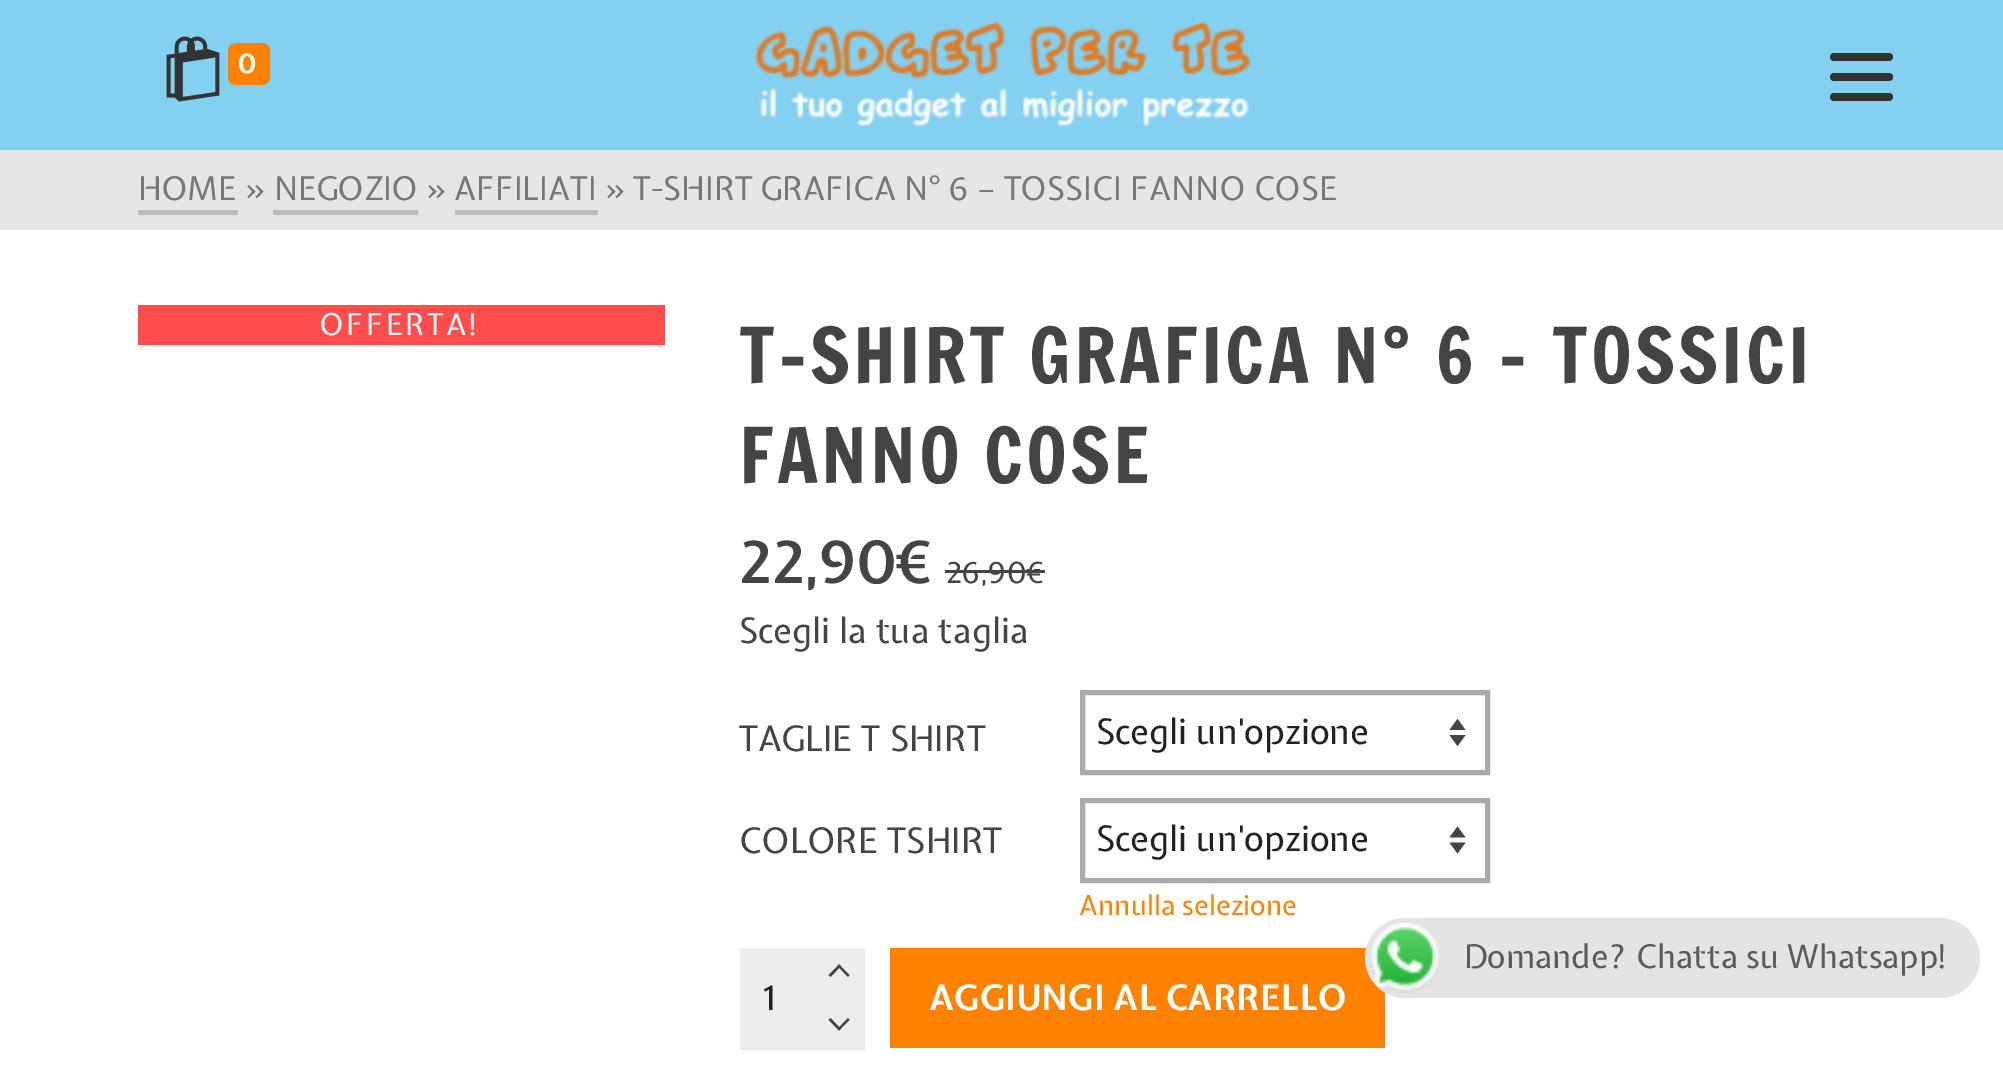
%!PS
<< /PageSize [2003 1071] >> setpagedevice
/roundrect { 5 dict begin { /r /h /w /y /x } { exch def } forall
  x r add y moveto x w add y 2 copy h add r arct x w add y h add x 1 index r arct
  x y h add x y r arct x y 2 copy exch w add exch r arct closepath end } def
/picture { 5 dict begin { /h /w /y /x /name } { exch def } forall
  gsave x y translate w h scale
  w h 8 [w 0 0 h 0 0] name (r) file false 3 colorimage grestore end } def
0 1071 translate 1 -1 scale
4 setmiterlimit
0.518 0.816 0.941 setrgbcolor
0 0 2003 1071 rectfill
(img1.rgb) 166 36 54 66 picture
1 0.506 0 setrgbcolor
228 43 42 42 8 roundrect fill
/ExpletusSans-Bold [27.5 0 0 -27.5 0 0] selectfont
1 setgray
238 73 moveto (0) show
(img2.rgb) 754 22 497 105 picture
0 230 2003 841 rectfill
0.902 setgray
0 150 2003 80 rectfill
/ExpletusSans-Regular [32.5 0 0 -32.5 0 0] selectfont
0.467 setgray
138 200 moveto (HOME » NEGOZIO » AFFILIATI » T-SHIRT GRAFICA N° 6 – TOSSICI FANNO COSE) show
0.733 setgray
138 210 100 5 rectfill
273 210 145 5 rectfill
455 210 143 5 rectfill
1 0.302 0.302 setrgbcolor
138 305 527 40 rectfill
/ExpletusSans-Regular [30 0 0 -30 0 0] selectfont
1 setgray
320 335 moveto 2.5 0 (OFFERTA!) ashow
/FrancoisOne-Regular [75 0 0 -75 0 0] selectfont
0.267 setgray
739 383 moveto 3 0 (T-SHIRT GRAFICA N° 6 – TOSSICI) ashow
739 483 moveto 3 0 (FANNO COSE) ashow
/ExpletusSans-SemiBold [60 0 0 -60 0 0] selectfont
739 583 moveto (22,90€) show
/ExpletusSans-Regular [30 0 0 -30 0 0] selectfont
946 583 moveto (26,90) show
945 570 83 3 rectfill
1027 583 moveto (€) show
1028 570 17 3 rectfill
/ExpletusSans-Regular [35 0 0 -35 0 0] selectfont
739 643 moveto (Scegli la tua taglia) show
739 751 moveto (TAGLIE T SHIRT) show
newpath 1449.5 730 moveto 1457.5 719 lineto 1465.5 730 lineto closepath 1465.5 735 moveto 1457.5 746 lineto 1449.5 735 lineto closepath fill
0.667 setgray
5 setlinewidth
1082.5 692.5 405 80 rectstroke
0.133 setgray
1096 744 moveto (Scegli un'opzione) show
0.267 setgray
739 853 moveto (COLORE TSHIRT) show
newpath 1449.5 837.5 moveto 1457.5 826.5 lineto 1465.5 837.5 lineto closepath 1465.5 842.5 moveto 1457.5 853.5 lineto 1449.5 842.5 lineto closepath fill
0.667 setgray
1082.5 800.5 405 80 rectstroke
0.133 setgray
1096 851 moveto (Scegli un'opzione) show
/ExpletusSans-Regular [27.5 0 0 -27.5 0 0] selectfont
1 0.506 0 setrgbcolor
1079 915 moveto (Annulla selezione) show
0.929 setgray
740 948 125 100 rectfill
0.267 setgray
newpath 828.5 975 moveto 839 964.5 lineto 841 966 lineto 830.5 977 lineto closepath fill
newpath 837.5 966 moveto 839 964.5 lineto 849.5 975 lineto 848 977 lineto closepath fill
0.902 setgray
740 1048 125 2 rectfill
/ExpletusSans-Regular [35 0 0 -35 0 0] selectfont
0.133 setgray
764 1010 moveto (1) show
0.267 setgray
newpath 849.5 1020 moveto 839 1030.5 lineto 837.5 1029 lineto 848 1018 lineto closepath fill
newpath 841 1029 moveto 839 1030.5 lineto 828.5 1020 lineto 830.5 1018 lineto closepath fill
1 0.506 0 setrgbcolor
890 948 495 100 rectfill
/ExpletusSans-Bold [35 0 0 -35 0 0] selectfont
1 setgray
929 1010 moveto (AGGIUNGI AL CARRELLO) show
0.2 setgray
1830 73 63 8 4 roundrect fill
1830 53 63 8 4 roundrect fill
1830 93 63 8 4 roundrect fill
0.894 setgray
1365 918 615 80 40 roundrect fill
(img3.rgb) 1370 922 70 71 picture
/ExpletusSans-Regular [32.5 0 0 -32.5 0 0] selectfont
0.357 setgray
1464 968 moveto (Domande? Chatta su Whatsapp!) show
showpage
